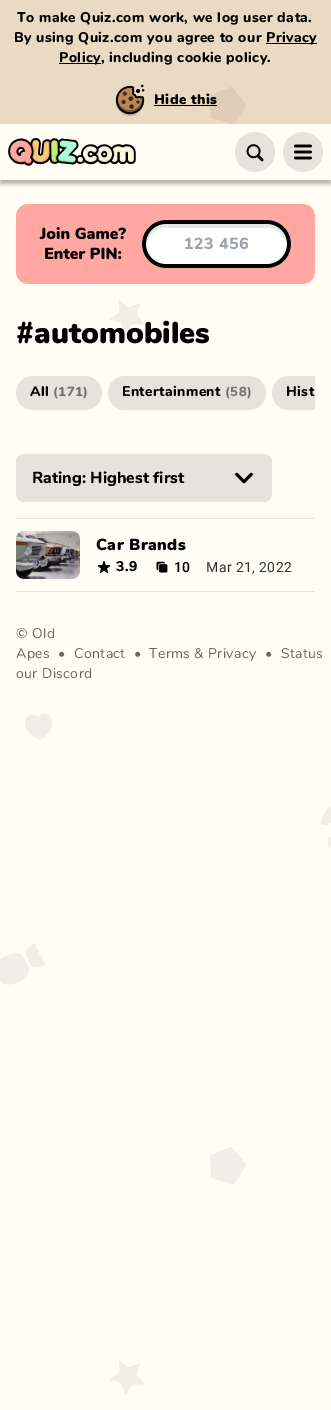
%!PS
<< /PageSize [331 1410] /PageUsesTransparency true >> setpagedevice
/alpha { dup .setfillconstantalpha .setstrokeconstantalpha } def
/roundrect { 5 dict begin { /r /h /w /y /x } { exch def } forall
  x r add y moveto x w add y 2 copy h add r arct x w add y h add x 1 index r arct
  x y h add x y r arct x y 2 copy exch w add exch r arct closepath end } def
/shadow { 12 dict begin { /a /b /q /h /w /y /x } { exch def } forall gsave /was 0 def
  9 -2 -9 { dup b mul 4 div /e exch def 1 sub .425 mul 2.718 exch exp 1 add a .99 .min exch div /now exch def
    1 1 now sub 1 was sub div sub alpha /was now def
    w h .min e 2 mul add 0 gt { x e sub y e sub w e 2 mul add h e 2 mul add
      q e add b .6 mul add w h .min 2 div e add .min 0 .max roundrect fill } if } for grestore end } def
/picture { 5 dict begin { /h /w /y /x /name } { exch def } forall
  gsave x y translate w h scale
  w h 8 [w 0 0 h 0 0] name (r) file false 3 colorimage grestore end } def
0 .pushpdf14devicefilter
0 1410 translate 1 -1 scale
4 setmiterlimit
1 0.992 0.957 setrgbcolor
0 0 331 1410 rectfill
0.922 0.855 0.765 setrgbcolor
0 0 331 124 rectfill
/Nunito-ExtraBold [14 0 0 -14 0 0] selectfont
0 setgray
17 22 moveto 0.4 0 (To make Quiz.com work, we log user data.) ashow
14 42 moveto 0.4 0 (By using Quiz.com you agree to our) ashow
266 43 51 1 rectfill
266 42 moveto 0.4 0 (Privacy) ashow
59 63 42 1 rectfill
59 62 moveto 0.4 0 (Policy, including cookie policy.) ashow
1 0.655 0.627 setrgbcolor
16 204 299 80 12 roundrect fill
/Nunito-Black [16 0 0 -16 0 0] selectfont
0 setgray
40 239 moveto (Join Game?) show
44 259 moveto (Enter PIN:) show
1 setgray
142 220 149 48 24 roundrect fill
0.902 setgray
newpath 166 228 moveto 267 228 lineto 277 228 286 236 287 246 curveto 288 236 281 226 271 224 curveto 250 224 lineto 162 224 lineto 152 226 145 236 146 246 curveto 147 236 156 228 166 228 curveto closepath fill
0 setgray
4 setlinewidth
144 222 145 44 22 roundrect stroke
/Nunito-ExtraBold [16 0 0 -16 0 0] selectfont
0.612 0.639 0.686 setrgbcolor
184 249 moveto 0.5 0 (123 456) ashow
(img2.rgb) 0 87 331 1307 picture
(img1.rgb) 115 84 30 32 picture
/Nunito-Black [14 0 0 -14 0 0] selectfont
0 setgray
154 104 moveto 0.4 0 (Hide this) ashow
154 105 63 1 rectfill
gsave
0 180 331 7 rectclip
0 128 331 56 0 2 0.3 shadow
grestore
(img3.rgb) 8 138 128 28 picture
0.898 0.89 0.863 setrgbcolor
newpath 255 152 20 0 360 arc closepath fill
(img4.rgb) 246 144 18 18 picture
0.902 0.894 0.863 setrgbcolor
newpath 303 152 20 0 360 arc closepath fill
(img5.rgb) 294 144 18 16 picture
/Nunito-Black [30 0 0 -30 0 0] selectfont
0 setgray
16 343 moveto (#automobiles) show
0.898 0.89 0.859 setrgbcolor
16 376 86 34 17 roundrect fill
/Nunito-ExtraBold [14 0 0 -14 0 0] selectfont
0 setgray
30 396 moveto 0.4 0 (All) ashow
/Nunito-ExtraBold [13 0 0 -13 0 0] selectfont
0.451 0.447 0.431 setrgbcolor
53 396 moveto 0.5 0 (\(171\)) ashow
0.898 0.89 0.859 setrgbcolor
108 376 158 34 17 roundrect fill
/Nunito-ExtraBold [14 0 0 -14 0 0] selectfont
0 setgray
122 396 moveto 0.4 0 (Entertainment) ashow
/Nunito-ExtraBold [13 0 0 -13 0 0] selectfont
0.451 0.447 0.431 setrgbcolor
225 396 moveto 0.5 0 (\(58\)) ashow
0.898 0.89 0.859 setrgbcolor
newpath 289 376 moveto 315 376 lineto 315 410 lineto 289 410 lineto 279.5 410 272 402.5 272 393 curveto 272 383.5 279.5 376 289 376 curveto closepath fill
/Nunito-ExtraBold [14 0 0 -14 0 0] selectfont
0 setgray
286 396 moveto 0.4 0 (Hist) ashow
1 0.992 0.957 setrgbcolor
142 509 51 68 rectfill
0.898 0.89 0.859 setrgbcolor
16 454 256 48 8 roundrect fill
/Nunito-ExtraBold [16 0 0 -16 0 0] selectfont
0 setgray
32 483 moveto (Rating: Highest first) show
(img6.rgb) 235 472 18 12 picture
0.902 0.894 0.863 setrgbcolor
16 518 299 1 rectfill
(img7.rgb) 16 531 64 48 picture
/Nunito-Black [16 0 0 -16 0 0] selectfont
0 setgray
96 550 moveto 0.5 0 (Car Brands) ashow
(img8.rgb) 97 561 14 12 picture
/Nunito-ExtraBold [14 0 0 -14 0 0] selectfont
116 571 moveto 0.4 0 (3.9) ashow
(img9.rgb) 156 561 12 12 picture
/Roboto-Medium [14 0 0 -14 0 0] selectfont
174 572 moveto 0.4 0 (10) ashow
/Roboto-Regular [14 0 0 -14 0 0] selectfont
0.2 0.2 0.192 setrgbcolor
206 572 moveto 0.4 0 (Mar 21, 2022) ashow
0.902 0.894 0.863 setrgbcolor
16 591 299 1 rectfill
/Nunito-Regular [14 0 0 -14 0 0] selectfont
0.4 0.396 0.384 setrgbcolor
16 638 moveto 0.4 0 (© Old) ashow
16 658 moveto 0.4 0 (Apes) ashow
58 658 moveto 0.4 0 (•) ashow
74 658 moveto 0.4 0 (Contact) ashow
134 658 moveto 0.4 0 (•) ashow
149 658 moveto 0.4 0 (Terms & Privacy) ashow
265 658 moveto 0.4 0 (•) ashow
281 658 moveto 0.4 0 (Status) ashow
16 678 moveto 0.4 0 (our Discord) ashow
.poppdf14devicefilter showpage
